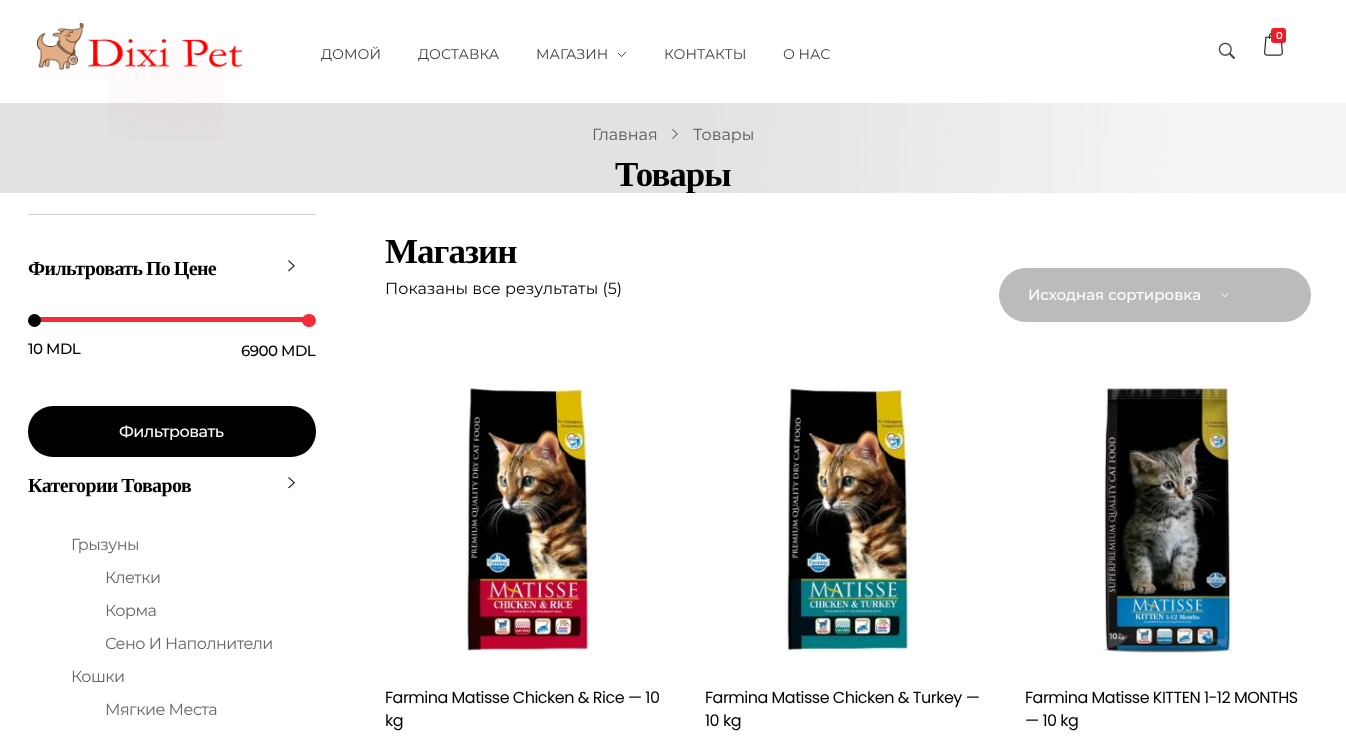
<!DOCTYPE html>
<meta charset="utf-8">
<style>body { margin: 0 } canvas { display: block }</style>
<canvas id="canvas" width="1346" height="740"></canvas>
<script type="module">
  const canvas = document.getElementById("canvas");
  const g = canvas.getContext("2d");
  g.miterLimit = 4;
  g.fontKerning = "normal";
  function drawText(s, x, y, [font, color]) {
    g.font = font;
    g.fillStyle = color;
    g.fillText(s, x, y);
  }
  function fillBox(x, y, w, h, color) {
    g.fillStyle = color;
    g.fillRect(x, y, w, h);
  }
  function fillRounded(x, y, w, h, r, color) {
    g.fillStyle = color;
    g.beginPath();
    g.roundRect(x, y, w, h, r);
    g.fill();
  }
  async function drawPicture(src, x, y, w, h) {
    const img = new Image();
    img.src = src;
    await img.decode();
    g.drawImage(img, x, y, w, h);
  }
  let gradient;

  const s1 = ["600 10px Montserrat", "#FFFFFF"];
  const s2 = ["14px Montserrat", "#3D3D3D"];
  const s3 = ["16px Montserrat", "#5A5A5A"];
  const s4 = ["bold 35px Liberation Serif", "#000000"];
  const s5 = ["bold 20px Liberation Serif", "#000000"];
  const s6 = ["500 15px Montserrat", "#000000"];
  const s7 = ["500 16px Montserrat", "#FFFFFF"];
  const s8 = ["16px Montserrat", "#666666"];
  const s9 = ["16px Montserrat", "#000000"];
  const s10 = ["500 15px Montserrat", "#FFFFFF"];
  const s11 = ["16px Poppins", "#000000"];

  fillBox(0, 0, 1346, 740, "#FFFFFF");
  gradient = g.createLinearGradient(0.1, 101, 1346, 195);
  gradient.addColorStop(0.52, "#E2E2E2");
  gradient.addColorStop(0.89, "#F5F5F5");
  g.fillStyle = gradient;
  g.fillRect(0, 103, 1346, 90);
  await drawPicture("pic2.png", 108, 41, 115, 99);
  await drawPicture("pic1.png", 37, 23, 205, 47);
  await drawPicture("pic3.png", 1264, 32, 19, 24);
  fillRounded(1271, 28, 15, 15, 3, "#EE1D26");
  drawText("0", 1276, 39, s1);
  drawText("ДОМОЙ", 321, 59, s2);
  drawText("ДОСТАВКА", 418, 59, s2);
  drawText("МАГАЗИН", 536, 59, s2);
  await drawPicture("pic4.png", 618, 52, 8, 5);
  drawText("КОНТАКТЫ", 664, 59, s2);
  drawText("О НАС", 783, 59, s2);
  await drawPicture("pic5.png", 1218, 42, 18, 18);
  drawText("Главная", 592, 140, s3);
  await drawPicture("pic6.png", 672, 129, 6, 10);
  drawText("Товары", 693, 140, s3);
  g.save();
  g.beginPath();
  g.rect(0, 103, 1346, 90);
  g.clip();
  g.letterSpacing = "-1px";
  drawText("Товары", 615, 186, s4);
  g.restore();
  fillBox(28, 214, 288, 1, "#CFCFCF");
  g.letterSpacing = "-0.6px";
  g.wordSpacing = "-1px";
  drawText("Фильтровать По Цене", 28, 275, s5);
  await drawPicture("pic7.png", 288, 260, 7, 12);
  fillBox(35, 317, 274, 5, "#F42C37");
  g.fillStyle = "#000000";
  g.beginPath();
  g.arc(34.5, 320.5, 6.5, 0, Math.PI * 2);
  g.fill();
  fillRounded(302, 314, 14, 13, 6.5, "#F42C37");
  g.letterSpacing = "-0.5px";
  g.wordSpacing = "0px";
  drawText("10 MDL", 28, 354, s6);
  drawText("6900 MDL", 241, 356, s6);
  fillRounded(28, 406, 288, 51, 25, "#000000");
  drawText("Фильтровать", 119, 437, s7);
  g.letterSpacing = "-0.6px";
  g.wordSpacing = "-1px";
  drawText("Категории Товаров", 28, 492, s5);
  await drawPicture("pic8.png", 288, 477, 7, 12);
  g.letterSpacing = "-0.5px";
  g.wordSpacing = "0px";
  drawText("Грызуны", 71, 550, s8);
  drawText("Клетки", 105, 583, s8);
  drawText("Корма", 105, 616, s8);
  drawText("Сено И Наполнители", 105, 649, s8);
  drawText("Кошки", 71, 682, s8);
  drawText("Мягкие Места", 105, 715, s8);
  g.letterSpacing = "-1px";
  drawText("Магазин", 385, 263, s4);
  g.letterSpacing = "0px";
  drawText("Показаны все результаты (5)", 385, 294, s9);
  fillRounded(999, 268, 312, 54, 27, "#BBBBBB");
  drawText("Исходная сортировка", 1028, 300, s10);
  await drawPicture("pic9.png", 1221, 293, 8, 4);
  await drawPicture("pic10.png", 465, 384, 126, 267);
  g.letterSpacing = "-0.5px";
  drawText("Farmina Matisse Chicken & Rice — 10", 385, 703, s11);
  drawText("kg", 385, 726, s11);
  await drawPicture("pic11.png", 785, 388, 126, 263);
  drawText("Farmina Matisse Chicken & Turkey —", 705, 703, s11);
  drawText("10 kg", 705, 726, s11);
  await drawPicture("pic12.png", 1103, 385, 130, 269);
  drawText("Farmina Matisse KITTEN 1-12 MONTHS", 1025, 703, s11);
  drawText("— 10 kg", 1025, 726, s11);
</script>
